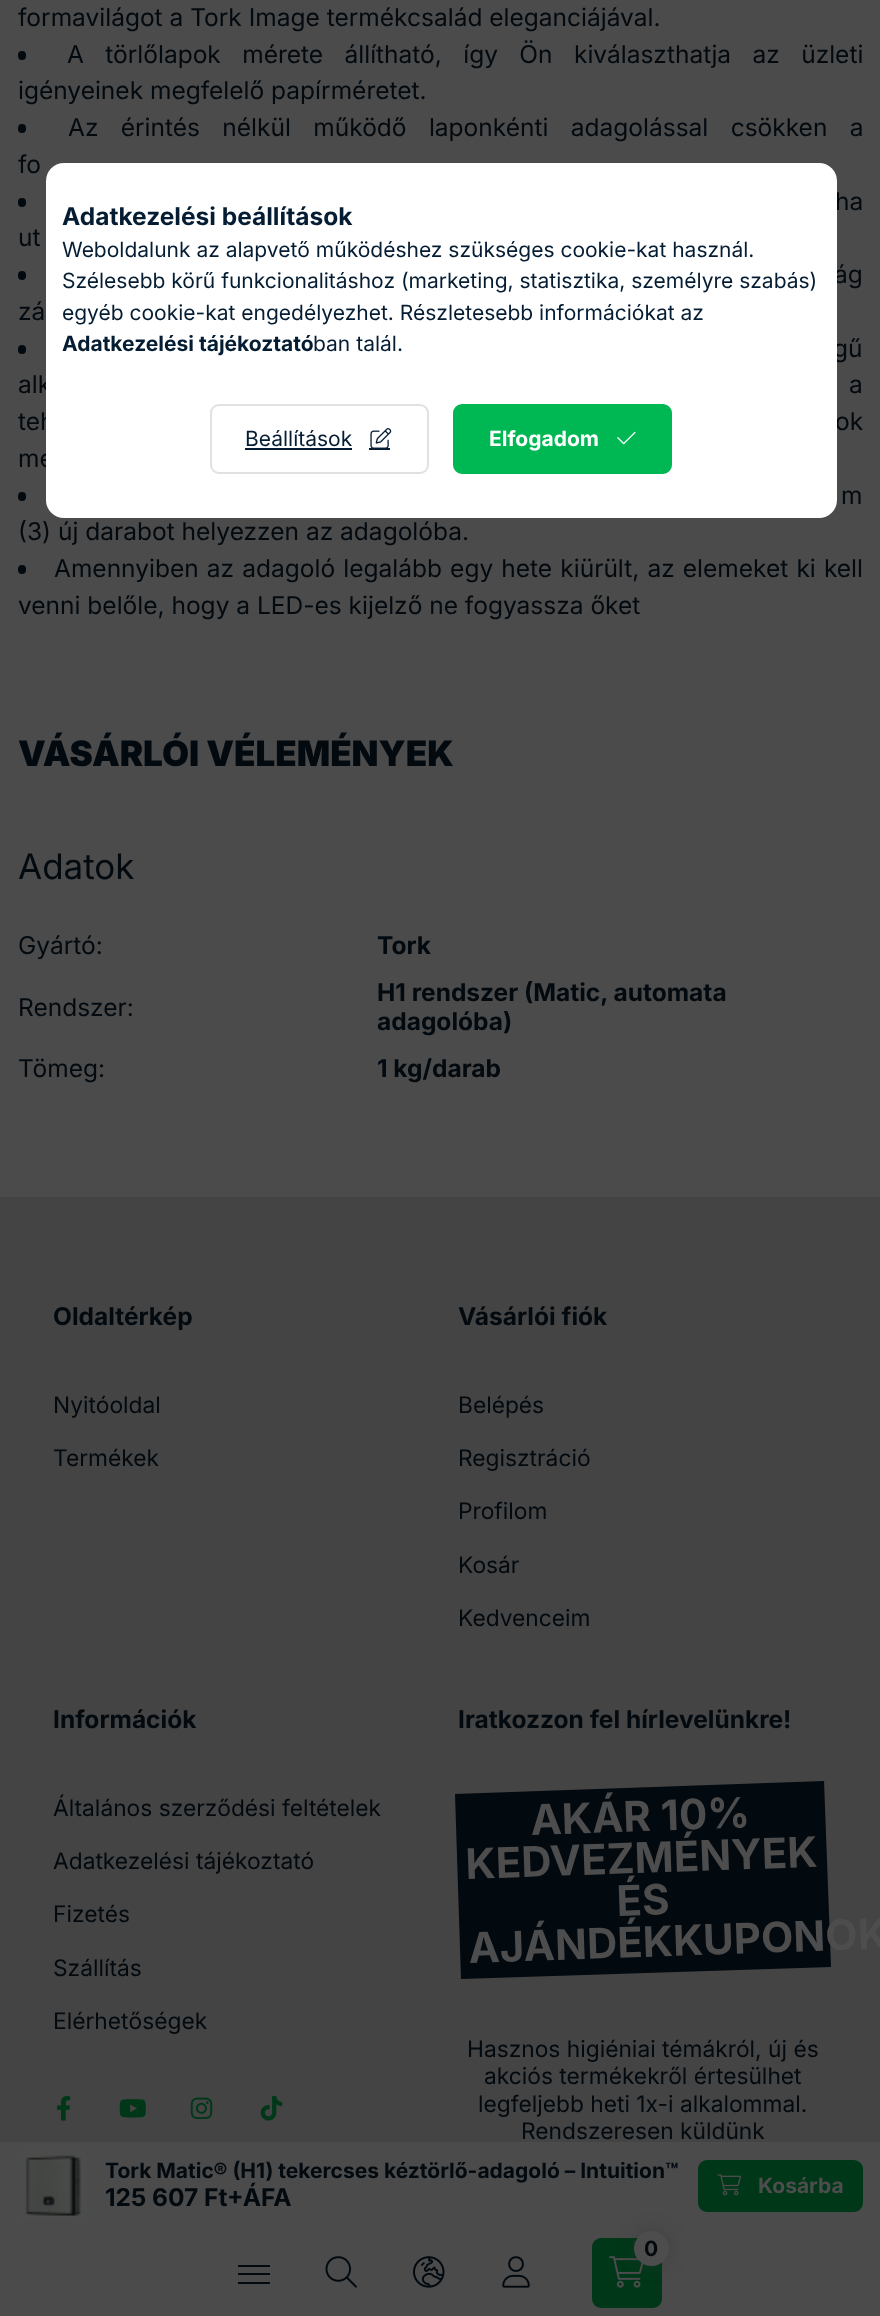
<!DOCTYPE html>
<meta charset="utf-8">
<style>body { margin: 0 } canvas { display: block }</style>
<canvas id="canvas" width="880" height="2316"></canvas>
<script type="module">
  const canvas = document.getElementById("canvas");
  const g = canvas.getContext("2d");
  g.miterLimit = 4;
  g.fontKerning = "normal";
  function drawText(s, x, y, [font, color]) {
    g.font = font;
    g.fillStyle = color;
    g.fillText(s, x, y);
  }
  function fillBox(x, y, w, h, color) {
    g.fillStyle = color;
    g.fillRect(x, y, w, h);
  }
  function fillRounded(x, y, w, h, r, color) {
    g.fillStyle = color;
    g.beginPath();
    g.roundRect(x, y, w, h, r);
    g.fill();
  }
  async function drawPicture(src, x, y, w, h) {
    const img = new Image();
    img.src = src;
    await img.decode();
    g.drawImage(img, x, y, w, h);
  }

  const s1 = ["24.5px Inter", "#02090F"];
  const s2 = ["900 35px Inter", "#02090F"];
  const s3 = ["35px Inter", "#02090F"];
  const s4 = ["bold 24.5px Inter", "#02090F"];
  const s5 = ["bold 21px Inter", "#02090F"];
  const s6 = ["bold 21px Inter", "#4D4D4D"];
  const s7 = ["22.75px Inter", "#02090F"];
  const s8 = ["bold 24.5px Inter", "#051D33"];
  const s9 = ["21px Inter", "#051D33"];
  const s10 = ["bold 21px Inter", "#051D33"];
  const s11 = ["bold 21px Inter", "#FFFFFF"];

  fillBox(0, 0, 880, 2316, "#4B4B4B");
  drawText("formavilágot a Tork Image termékcsalád eleganciájával.", 18, 26, s1);
  fillRounded(18, 51, 8, 9, 4, "#02090F");
  g.wordSpacing = "14.5px";
  drawText("A törlőlapok mérete állítható, így Ön kiválaszthatja az üzleti", 67, 63, s1);
  g.wordSpacing = "0px";
  drawText("igényeinek megfelelő papírméretet.", 18, 99, s1);
  fillRounded(18, 124, 8, 9, 4, "#02090F");
  g.wordSpacing = "15.5px";
  drawText("Az érintés nélkül működő laponkénti adagolással csökken a", 68, 136, s1);
  g.wordSpacing = "0px";
  drawText("fo", 18, 173, s1);
  fillRounded(18, 198, 8, 9, 4, "#02090F");
  g.wordSpacing = "14px";
  drawText("ha", 835, 210, s1);
  g.wordSpacing = "0px";
  drawText("ut", 18, 246, s1);
  fillRounded(18, 271, 8, 9, 4, "#02090F");
  g.wordSpacing = "1px";
  drawText("ág", 834, 283, s1);
  g.wordSpacing = "0px";
  drawText("zá", 18, 320, s1);
  fillRounded(18, 345, 8, 9, 4, "#02090F");
  g.wordSpacing = "4px";
  drawText("gű", 833, 357, s1);
  g.wordSpacing = "16px";
  drawText("alk", 18, 393, s1);
  drawText("a", 849, 393, s1);
  g.wordSpacing = "14px";
  drawText("teh", 18, 430, s1);
  drawText("ok", 835, 430, s1);
  g.wordSpacing = "0px";
  drawText("me", 18, 467, s1);
  fillRounded(18, 492, 8, 9, 4, "#02090F");
  g.wordSpacing = "3px";
  drawText("m", 841, 504, s1);
  g.wordSpacing = "0px";
  drawText("(3) új darabot helyezzen az adagolóba.", 18, 540, s1);
  fillRounded(18, 565, 8, 9, 4, "#02090F");
  g.wordSpacing = "1.25px";
  drawText("Amennyiben az adagoló legalább egy hete kiürült, az elemeket ki kell", 54, 577, s1);
  g.wordSpacing = "0px";
  drawText("venni belőle, hogy a LED-es kijelző ne fogyassza őket", 18, 614, s1);
  drawText("VÁSÁRLÓI VÉLEMÉNYEK", 18, 766, s2);
  drawText("Adatok", 18, 879, s3);
  drawText("Gyártó:", 18, 954, s1);
  drawText("Tork", 377, 954, s4);
  drawText("Rendszer:", 18, 1016, s1);
  drawText("H1 rendszer (Matic, automata", 377, 1001, s4);
  drawText("adagolóba)", 377, 1030, s4);
  drawText("Tömeg:", 18, 1077, s1);
  drawText("1 kg/darab", 377, 1077, s4);
  await drawPicture("pic1.png", 17, 2151, 70, 70);
  drawText("Tork Matic® (H1) tekercses kéztörlő-adagoló – Intuition™", 105, 2178, s5);
  drawText("125 607 Ft", 105, 2206, s4);
  drawText("+ÁFA", 227, 2206, s4);
  fillRounded(698, 2160, 165, 52, 9, "#003719");
  await drawPicture("pic2.png", 717, 2174, 24, 22);
  drawText("Kosárba", 758, 2193, s6);
  fillBox(0, 1197, 880, 945, "#444444");
  drawText("Oldaltérkép", 53, 1325, s4);
  drawText("Nyitóoldal", 53, 1413, s7);
  drawText("Termékek", 53, 1466, s7);
  drawText("Vásárlói fiók", 458, 1325, s4);
  drawText("Belépés", 458, 1413, s7);
  drawText("Regisztráció", 458, 1466, s7);
  drawText("Profilom", 458, 1519, s7);
  drawText("Kosár", 458, 1573, s7);
  drawText("Kedvenceim", 458, 1626, s7);
  drawText("Információk", 53, 1728, s4);
  drawText("Általános szerződési feltételek", 53, 1816, s7);
  drawText("Adatkezelési tájékoztató", 53, 1869, s7);
  drawText("Fizetés", 53, 1922, s7);
  drawText("Szállítás", 53, 1976, s7);
  drawText("Elérhetőségek", 53, 2029, s7);
  await drawPicture("pic3.png", 57, 2096, 14, 25);
  await drawPicture("pic4.png", 119, 2099, 27, 19);
  await drawPicture("pic5.png", 190, 2097, 23, 22);
  await drawPicture("pic6.png", 260, 2096, 23, 25);
  drawText("Iratkozzon fel hírlevelünkre!", 458, 1728, s4);
  g.beginPath();
  g.moveTo(455, 1794);
  g.lineTo(824, 1781);
  g.lineTo(831, 1967);
  g.lineTo(461, 1979);
  g.closePath();
  g.fill();
  g.font = "bold 42px Inter";
  g.fillStyle = "#4D4D4D";
  g.save();
  g.translate(531, 1835);
  g.rotate(-2 * Math.PI / 180);
  g.fillText("AKÁR 10%", 0, 0);
  g.restore();
  g.save();
  g.translate(466, 1879);
  g.rotate(-2 * Math.PI / 180);
  g.fillText("KEDVEZMÉNYEK", 0, 0);
  g.restore();
  g.save();
  g.translate(617, 1916);
  g.rotate(-2 * Math.PI / 180);
  g.fillText("ÉS", 0, 0);
  g.restore();
  g.save();
  g.translate(469, 1963);
  g.rotate(-2 * Math.PI / 180);
  g.fillText("AJÁNDÉKKUPONOK", 0, 0);
  g.restore();
  drawText("Hasznos higiéniai témákról, új és", 467, 2057, s7);
  drawText("akciós termékekről értesülhet", 484, 2084, s7);
  drawText("legfeljebb heti 1x-i alkalommal.", 478, 2112, s7);
  drawText("Rendszeresen küldünk", 521, 2139, s7);
  fillRounded(592, 2238, 70, 70, 9, "#003719");
  await drawPicture("pic7.png", 609, 2256, 35, 32);
  g.fillStyle = "rgba(45, 45, 45, 0.35)";
  g.filter = "blur(9px)";
  g.beginPath();
  g.roundRect(634, 2231, 35, 35, 17.5);
  g.fill();
  g.filter = "none";
  g.fillStyle = "#4D4D4D";
  g.beginPath();
  g.arc(651.5, 2248.5, 17.5, 0, Math.PI * 2);
  g.fill();
  drawText("0", 644, 2256, s5);
  fillBox(238, 2265, 32, 2, "#02090F");
  fillBox(238, 2273, 32, 2, "#02090F");
  fillBox(238, 2282, 32, 2, "#02090F");
  await drawPicture("pic8.png", 325, 2256, 32, 32);
  await drawPicture("pic9.png", 413, 2256, 32, 32);
  await drawPicture("pic10.png", 502, 2256, 28, 32);
  fillRounded(46, 163, 791, 355, 18, "#FFFFFF");
  drawText("Adatkezelési beállítások", 62, 225, s8);
  drawText("Weboldalunk az alapvető működéshez szükséges cookie-kat használ.", 62, 257, s9);
  drawText("Szélesebb körű funkcionalitáshoz (marketing, statisztika, személyre szabás)", 62, 288, s9);
  drawText("egyéb cookie-kat engedélyezhet. Részletesebb információkat az", 62, 320, s9);
  drawText("Adatkezelési tájékoztató", 62, 351, s10);
  drawText("ban talál.", 313, 351, s9);
  g.beginPath();
  g.roundRect(211, 405, 217, 68, 8);
  g.strokeStyle = "#E1E1E1";
  g.lineWidth = 2;
  g.stroke();
  drawText("Beállítások", 245, 446, s9);
  fillBox(245, 448, 107, 2, "#051D33");
  await drawPicture("pic11.png", 370, 428, 22, 20);
  fillBox(369, 448, 21, 2, "#051D33");
  g.fillStyle = "#00B853";
  g.beginPath();
  g.roundRect(454, 405, 217, 68, 8);
  g.fill();
  g.strokeStyle = "#00B853";
  g.stroke();
  drawText("Elfogadom", 489, 446, s11);
  await drawPicture("pic12.png", 617, 431, 19, 14);
</script>
